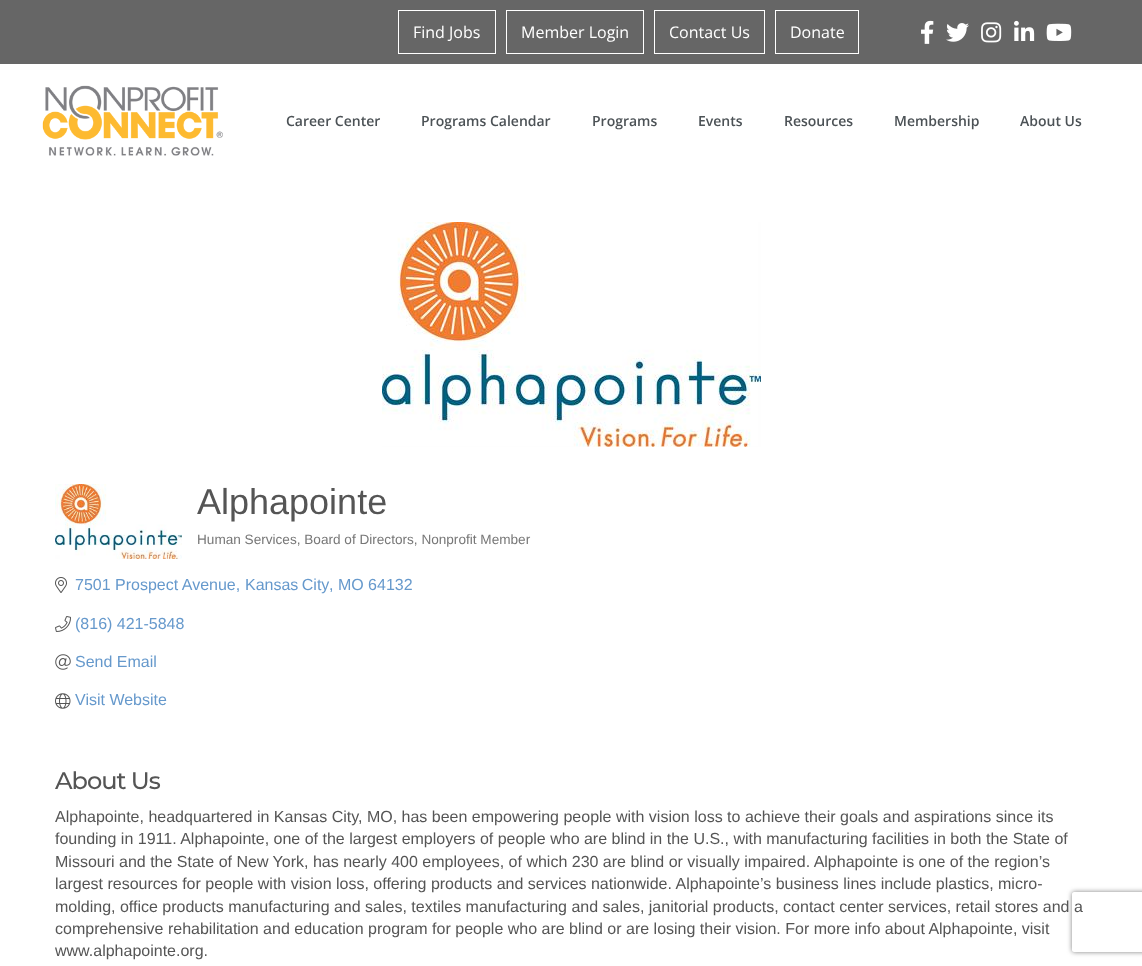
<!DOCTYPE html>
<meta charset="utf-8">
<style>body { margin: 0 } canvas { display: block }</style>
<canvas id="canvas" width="1142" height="966"></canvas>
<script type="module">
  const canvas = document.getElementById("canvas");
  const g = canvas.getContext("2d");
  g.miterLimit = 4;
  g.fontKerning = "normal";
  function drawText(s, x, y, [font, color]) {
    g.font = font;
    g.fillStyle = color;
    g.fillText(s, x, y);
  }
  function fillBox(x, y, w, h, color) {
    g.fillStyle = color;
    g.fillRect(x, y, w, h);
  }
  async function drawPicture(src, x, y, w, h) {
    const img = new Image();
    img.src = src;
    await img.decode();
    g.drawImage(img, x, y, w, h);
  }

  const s1 = ["16px Open Sans", "#FFFFFF"];
  const s2 = ["600 14px Open Sans", "#4C5256"];
  const s3 = ["36px Liberation Sans", "#555555"];
  const s4 = ["13.6px Liberation Sans", "#777777"];
  const s5 = ["16px Liberation Sans", "#6699CC"];
  const s6 = ["100 24px Montserrat", "#555555"];
  const s7 = ["16px Liberation Sans", "#555555"];

  fillBox(0, 0, 1142, 966, "#FFFFFF");
  fillBox(0, 0, 1142, 64, "#666666");
  g.strokeStyle = "#FFFFFF";
  g.strokeRect(398.5, 10.5, 97, 43);
  drawText("Find Jobs", 413, 38, s1);
  g.strokeRect(506.5, 10.5, 137, 43);
  drawText("Member Login", 521, 38, s1);
  g.strokeRect(654.5, 10.5, 110, 43);
  drawText("Contact Us", 669, 38, s1);
  g.strokeRect(775.5, 10.5, 83, 43);
  drawText("Donate", 790, 38, s1);
  await drawPicture("pic1.png", 921, 20, 13, 24);
  await drawPicture("pic2.png", 946, 23, 23, 19);
  await drawPicture("pic3.png", 981, 22, 21, 21);
  await drawPicture("pic4.png", 1014, 20, 21, 21);
  await drawPicture("pic5.png", 1046, 23, 26, 18);
  await drawPicture("pic6.png", 42, 85, 181, 71);
  drawText("Career Center", 286, 126, s2);
  drawText("Programs Calendar", 421, 126, s2);
  drawText("Programs", 592, 126, s2);
  drawText("Events", 698, 126, s2);
  drawText("Resources", 784, 126, s2);
  drawText("Membership", 894, 126, s2);
  drawText("About Us", 1020, 126, s2);
  await drawPicture("pic7.png", 382, 222, 379, 225);
  await drawPicture("pic8.png", 55, 484, 127, 75);
  drawText("Alphapointe", 197, 514, s3);
  drawText("Human Services, Board of Directors, Nonprofit Member", 197, 544, s4);
  await drawPicture("pic9.png", 55, 577, 12, 16);
  drawText("7501 Prospect Avenue,", 75, 590, s5);
  g.wordSpacing = "-1px";
  drawText("Kansas City", 245, 590, s5);
  g.wordSpacing = "0px";
  drawText(", MO 64132", 329, 590, s5);
  await drawPicture("pic10.png", 55, 616, 16, 16);
  drawText("(816) 421-5848", 75, 629, s5);
  await drawPicture("pic11.png", 55, 654, 16, 16);
  drawText("Send Email", 75, 667, s5);
  await drawPicture("pic12.png", 55, 693, 16, 16);
  drawText("Visit Website", 75, 705, s5);
  g.letterSpacing = "-1px";
  drawText("About Us", 55, 789, s6);
  g.letterSpacing = "0px";
  drawText("Alphapointe, headquartered in Kansas City, MO, has been empowering people with vision loss to achieve their goals and aspirations since its", 55, 822, s7);
  drawText("founding in 1911. Alphapointe, one of the largest employers of people who are blind in the U.S., with manufacturing facilities in both the State of", 55, 844, s7);
  drawText("Missouri and the State of New York, has nearly 400 employees, of which 230 are blind or visually impaired. Alphapointe is one of the region’s", 55, 867, s7);
  drawText("largest resources for people with vision loss, offering products and services nationwide. Alphapointe’s business lines include plastics, micro-", 55, 889, s7);
  drawText("molding, office products manufacturing and sales, textiles manufacturing and sales, janitorial products, contact center services, retail stores and a", 55, 912, s7);
  drawText("comprehensive rehabilitation and education program for people who are blind or are losing their vision. For more info about Alphapointe, visit", 55, 934, s7);
  drawText("www.alphapointe.org.", 55, 956, s7);
  g.save();
  g.beginPath();
  g.moveTo(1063, 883);
  g.lineTo(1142, 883);
  g.lineTo(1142, 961);
  g.lineTo(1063, 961);
  g.closePath();
  g.moveTo(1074, 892);
  g.lineTo(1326, 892);
  g.bezierCurveTo(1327, 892, 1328, 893, 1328, 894);
  g.lineTo(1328, 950);
  g.bezierCurveTo(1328, 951, 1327, 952, 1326, 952);
  g.lineTo(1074, 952);
  g.bezierCurveTo(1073, 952, 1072, 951, 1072, 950);
  g.lineTo(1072, 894);
  g.bezierCurveTo(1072, 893, 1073, 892, 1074, 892);
  g.closePath();
  g.clip("evenodd");
  g.fillStyle = "#808080";
  g.filter = "blur(2.5px)";
  g.beginPath();
  g.roundRect(1072, 892, 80, 60, 2);
  g.fill();
  g.filter = "none";
  g.restore();
</script>
